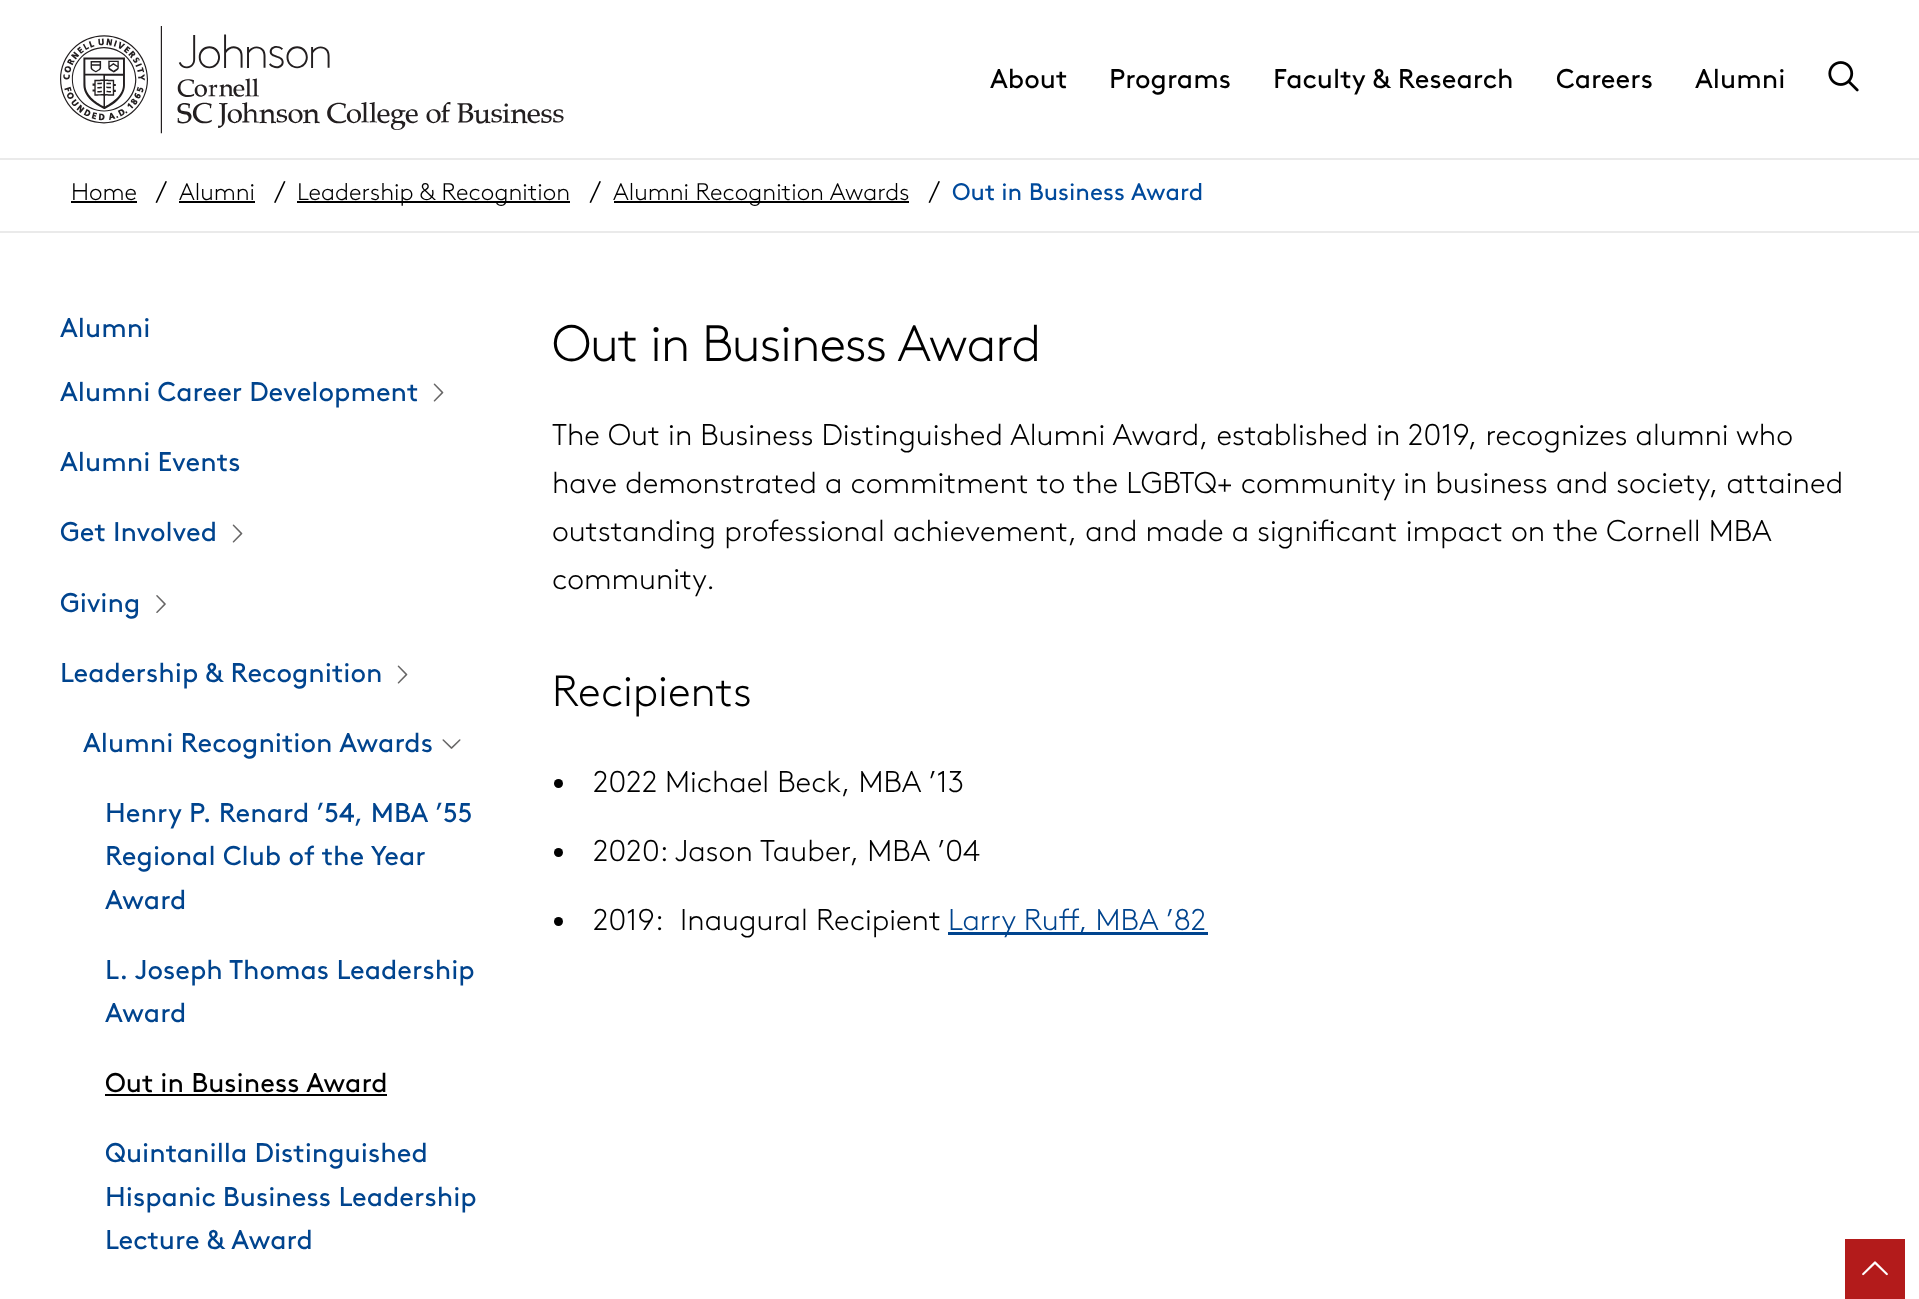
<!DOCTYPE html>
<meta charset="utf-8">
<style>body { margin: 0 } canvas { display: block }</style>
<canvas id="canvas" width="1919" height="1299"></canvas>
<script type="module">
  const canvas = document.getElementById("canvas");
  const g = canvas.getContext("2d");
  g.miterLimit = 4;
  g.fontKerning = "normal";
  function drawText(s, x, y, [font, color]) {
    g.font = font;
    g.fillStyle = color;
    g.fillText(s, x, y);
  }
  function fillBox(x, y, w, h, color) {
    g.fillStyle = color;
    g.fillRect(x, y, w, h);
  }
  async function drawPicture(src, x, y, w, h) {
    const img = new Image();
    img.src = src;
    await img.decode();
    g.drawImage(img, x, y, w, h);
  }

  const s1 = ["27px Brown", "#000000"];
  const s2 = ["300 24px Brown", "#000000"];
  const s3 = ["24px Brown", "#004A9C"];
  const s4 = ["27px Brown", "#00448E"];
  const s5 = ["300 51px Brown", "#000000"];
  const s6 = ["300 30px Brown", "#000000"];
  const s7 = ["300 43.5px Brown", "#000000"];
  const s8 = ["300 30px Brown", "#00448E"];

  fillBox(0, 0, 1919, 1299, "#FFFFFF");
  fillBox(0, 158, 1919, 2, "#EAEAEA");
  await drawPicture("pic1.png", 60, 26, 504, 108);
  drawText("About", 990, 88, s1);
  drawText("Programs", 1109, 88, s1);
  drawText("Faculty & Research", 1273, 88, s1);
  drawText("Careers", 1556, 88, s1);
  drawText("Alumni", 1695, 88, s1);
  await drawPicture("pic2.png", 1828, 61, 31, 31);
  fillBox(0, 231, 1919, 2, "#EAEAEA");
  drawText("Home", 71, 200, s2);
  fillBox(71, 201, 66, 2, "#000000");
  g.beginPath();
  g.moveTo(165.5, 181);
  g.lineTo(167, 181.5);
  g.lineTo(157, 203);
  g.lineTo(155.5, 202.5);
  g.closePath();
  g.fill();
  drawText("Alumni", 179, 200, s2);
  fillBox(179, 201, 76, 2, "#000000");
  g.beginPath();
  g.moveTo(284, 181);
  g.lineTo(285.5, 181.5);
  g.lineTo(275.5, 203);
  g.lineTo(274, 202.5);
  g.closePath();
  g.fill();
  fillBox(297, 201, 273, 2, "#000000");
  drawText("Leadership & Recognition", 297, 200, s2);
  g.beginPath();
  g.moveTo(599.5, 181);
  g.lineTo(601, 181.5);
  g.lineTo(591, 203);
  g.lineTo(589.5, 202.5);
  g.closePath();
  g.fill();
  fillBox(614, 201, 295, 2, "#000000");
  drawText("Alumni Recognition Awards", 613, 200, s2);
  g.beginPath();
  g.moveTo(938.5, 181);
  g.lineTo(940, 181.5);
  g.lineTo(930, 203);
  g.lineTo(928.5, 202.5);
  g.closePath();
  g.fill();
  drawText("Out in Business Award", 952, 200, s3);
  drawText("Alumni", 60, 337, s4);
  drawText("Alumni Career Development", 60, 401, s4);
  await drawPicture("pic3.png", 433, 383, 11, 19);
  drawText("Alumni Events", 60, 471, s4);
  drawText("Get Involved", 60, 541, s4);
  await drawPicture("pic3.png", 232, 524, 11, 19);
  drawText("Giving", 60, 612, s4);
  await drawPicture("pic4.png", 156, 595, 10, 18);
  drawText("Leadership & Recognition", 60, 682, s4);
  await drawPicture("pic3.png", 397, 665, 11, 19);
  drawText("Alumni Recognition Awards", 83, 752, s4);
  await drawPicture("pic5.png", 442, 739, 19, 10);
  drawText("Henry P. Renard ’54, MBA ’55", 105, 822, s4);
  drawText("Regional Club of the Year", 105, 865, s4);
  drawText("Award", 105, 909, s4);
  drawText("L. Joseph Thomas Leadership", 105, 979, s4);
  drawText("Award", 105, 1022, s4);
  drawText("Out in Business Award", 105, 1092, s1);
  fillBox(105, 1094, 282, 2, "#000000");
  drawText("Quintanilla Distinguished", 105, 1162, s4);
  drawText("Hispanic Business Leadership", 105, 1206, s4);
  drawText("Lecture & Award", 105, 1249, s4);
  g.letterSpacing = "-1px";
  drawText("Out in Business Award", 552, 361, s5);
  g.letterSpacing = "0px";
  drawText("The Out in Business Distinguished Alumni Award, established in 2019, recognizes alumni who", 552, 445, s6);
  drawText("have demonstrated a commitment to the LGBTQ+ community in business and society, attained", 552, 493, s6);
  drawText("outstanding professional achievement, and made a significant impact on the Cornell MBA", 552, 541, s6);
  drawText("community.", 552, 589, s6);
  drawText("Recipients", 552, 706, s7);
  g.beginPath();
  g.arc(558.5, 783.5, 4.5, 0, Math.PI * 2);
  g.fill();
  drawText("2022 Michael Beck, MBA ’13", 593, 792, s6);
  g.beginPath();
  g.arc(558.5, 852.5, 4.5, 0, Math.PI * 2);
  g.fill();
  drawText("2020: Jason Tauber, MBA ’04", 593, 861, s6);
  g.beginPath();
  g.arc(558.5, 921.5, 4.5, 0, Math.PI * 2);
  g.fill();
  drawText("2019:  Inaugural Recipient", 593, 930, s6);
  fillBox(948, 932, 260, 3, "#00448E");
  drawText("Larry Ruff, MBA ’82", 948, 930, s8);
  fillBox(1845, 1239, 60, 60, "#B31B1B");
  await drawPicture("pic6.png", 1862, 1261, 26, 15);
</script>
